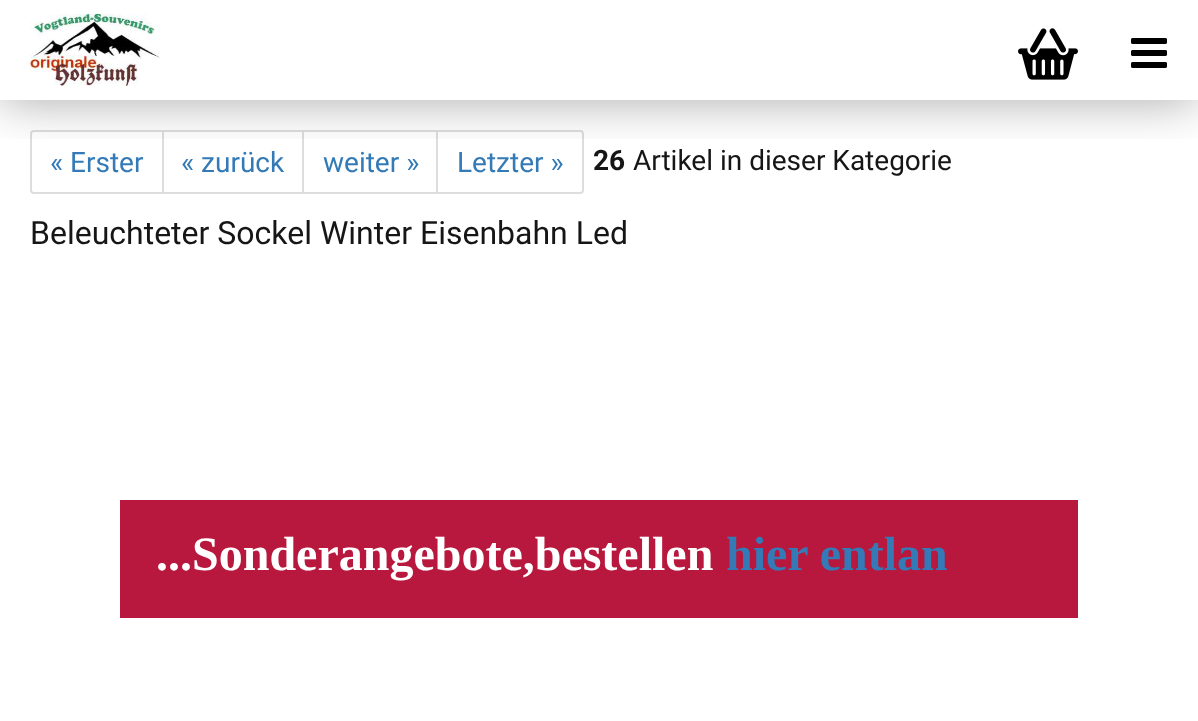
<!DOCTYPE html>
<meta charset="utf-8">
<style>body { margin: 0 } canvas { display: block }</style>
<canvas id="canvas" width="1198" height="721"></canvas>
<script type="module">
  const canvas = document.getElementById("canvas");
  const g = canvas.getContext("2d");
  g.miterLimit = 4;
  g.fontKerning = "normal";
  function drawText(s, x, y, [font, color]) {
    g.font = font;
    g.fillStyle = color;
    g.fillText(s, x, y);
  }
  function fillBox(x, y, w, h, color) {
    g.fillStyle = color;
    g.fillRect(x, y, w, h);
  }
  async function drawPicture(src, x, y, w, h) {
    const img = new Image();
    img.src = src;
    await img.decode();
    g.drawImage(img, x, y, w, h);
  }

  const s1 = ["28px Roboto", "#337AB7"];
  const s2 = ["bold 28px Roboto", "#161616"];
  const s3 = ["28px Roboto", "#161616"];
  const s4 = ["32px Roboto", "#161616"];
  const s5 = ["bold 48px Liberation Serif", "#FFFFFF"];
  const s6 = ["bold 48px Liberation Serif", "#337AB7"];

  fillBox(0, 0, 1198, 721, "#FFFFFF");
  g.beginPath();
  g.roundRect(31, 131, 132, 62, [3, 0, 0, 3]);
  g.strokeStyle = "#DDDDDD";
  g.lineWidth = 2;
  g.stroke();
  drawText("« Erster", 50, 172, s1);
  g.strokeRect(163, 131, 140, 62);
  drawText("« zurück", 181, 172, s1);
  g.strokeRect(303, 131, 134, 62);
  drawText("weiter »", 323, 172, s1);
  g.fillStyle = "#FFFFFF";
  g.beginPath();
  g.roundRect(437, 131, 146, 62, [0, 3, 3, 0]);
  g.fill();
  g.stroke();
  drawText("Letzter »", 457, 172, s1);
  drawText("26", 593, 170, s2);
  drawText("Artikel in dieser Kategorie", 633, 170, s3);
  drawText("Beleuchteter Sockel Winter Eisenbahn Led", 30, 244, s4);
  g.save();
  g.beginPath();
  g.rect(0, 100, 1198, 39);
  g.clip();
  g.fillStyle = "rgba(0, 0, 0, 0.35)";
  g.filter = "blur(25px)";
  g.beginPath();
  g.rect(0, 0, 1198, 100);
  g.fill();
  g.filter = "none";
  g.restore();
  await drawPicture("pic1.png", 30, 13, 130, 73);
  await drawPicture("pic2.png", 1018, 28, 60, 52);
  await drawPicture("pic3.png", 1131, 38, 36, 30);
  fillBox(120, 500, 958, 118, "#B8183D");
  drawText("...Sonderangebote,bestellen", 156, 570, s5);
  drawText("hier entlan", 726, 570, s6);
</script>
